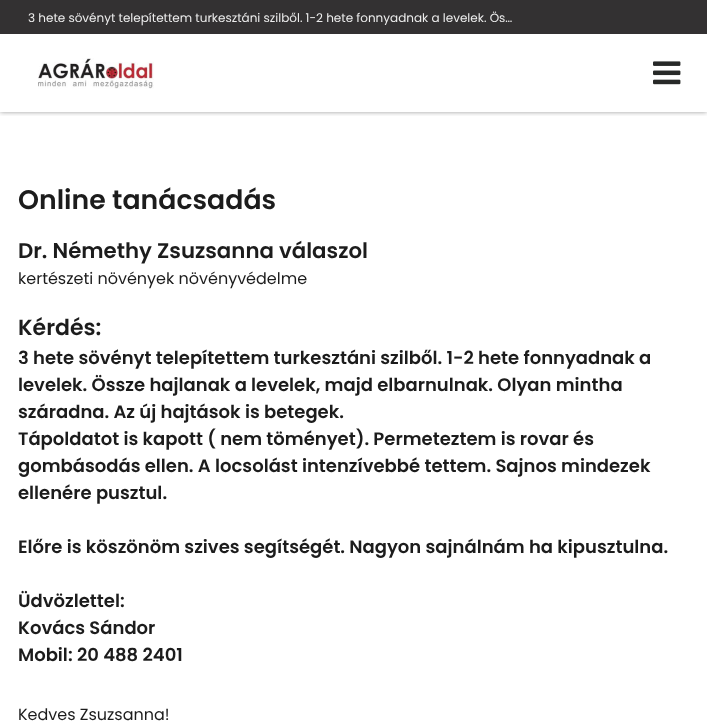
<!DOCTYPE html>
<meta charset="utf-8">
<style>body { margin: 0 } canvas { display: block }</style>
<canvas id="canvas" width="707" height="721"></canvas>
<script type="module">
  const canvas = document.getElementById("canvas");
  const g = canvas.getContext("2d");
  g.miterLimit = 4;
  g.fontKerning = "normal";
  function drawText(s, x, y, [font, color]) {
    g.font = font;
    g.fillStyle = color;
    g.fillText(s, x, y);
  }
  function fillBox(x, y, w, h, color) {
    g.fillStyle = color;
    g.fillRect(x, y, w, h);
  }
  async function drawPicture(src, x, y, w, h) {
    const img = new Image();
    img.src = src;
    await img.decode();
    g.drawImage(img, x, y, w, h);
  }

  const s1 = ["12px Poppins", "#EDEDED"];
  const s2 = ["600 26.75px Poppins", "#1C1C1C"];
  const s3 = ["600 21.3px Poppins", "#1C1C1C"];
  const s4 = ["16px Poppins", "#1C1C1C"];
  const s5 = ["600 22px Poppins", "#1C1C1C"];
  const s6 = ["600 18px Poppins", "#1C1C1C"];

  fillBox(0, 0, 707, 721, "#FFFFFF");
  g.save();
  g.beginPath();
  g.rect(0, 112, 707, 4);
  g.clip();
  g.fillStyle = "rgba(0, 0, 0, 0.4)";
  g.filter = "blur(2.5px)";
  g.beginPath();
  g.rect(0, 0, 707, 112);
  g.fill();
  g.filter = "none";
  g.restore();
  fillBox(0, 0, 707, 34, "#333132");
  drawText("3 hete sövényt telepítettem turkesztáni szilből. 1-2 hete fonnyadnak a levelek. Ös…", 28, 22, s1);
  await drawPicture("pic1.png", 38, 58, 116, 31);
  await drawPicture("pic2.png", 653, 61, 28, 24);
  drawText("Online tanácsadás", 18, 209, s2);
  drawText("Dr. Némethy Zsuzsanna válaszol", 18, 258, s3);
  drawText("kertészeti növények növényvédelme", 18, 284, s4);
  drawText("Kérdés:", 18, 335, s5);
  drawText("3 hete sövényt telepítettem turkesztáni szilből. 1-2 hete fonnyadnak a", 18, 364, s6);
  drawText("levelek. Össze hajlanak a levelek, majd elbarnulnak. Olyan mintha", 18, 391, s6);
  drawText("száradna. Az új hajtások is betegek.", 18, 418, s6);
  drawText("Tápoldatot is kapott ( nem töményet). Permeteztem is rovar és", 18, 445, s6);
  drawText("gombásodás ellen. A locsolást intenzívebbé tettem. Sajnos mindezek", 18, 472, s6);
  drawText("ellenére pusztul.", 18, 499, s6);
  drawText("Előre is köszönöm szives segítségét. Nagyon sajnálnám ha kipusztulna.", 18, 553, s6);
  drawText("Üdvözlettel:", 18, 607, s6);
  drawText("Kovács Sándor", 18, 634, s6);
  drawText("Mobil: 20 488 2401", 18, 661, s6);
  drawText("Kedves Zsuzsanna!", 18, 720, s4);
</script>
